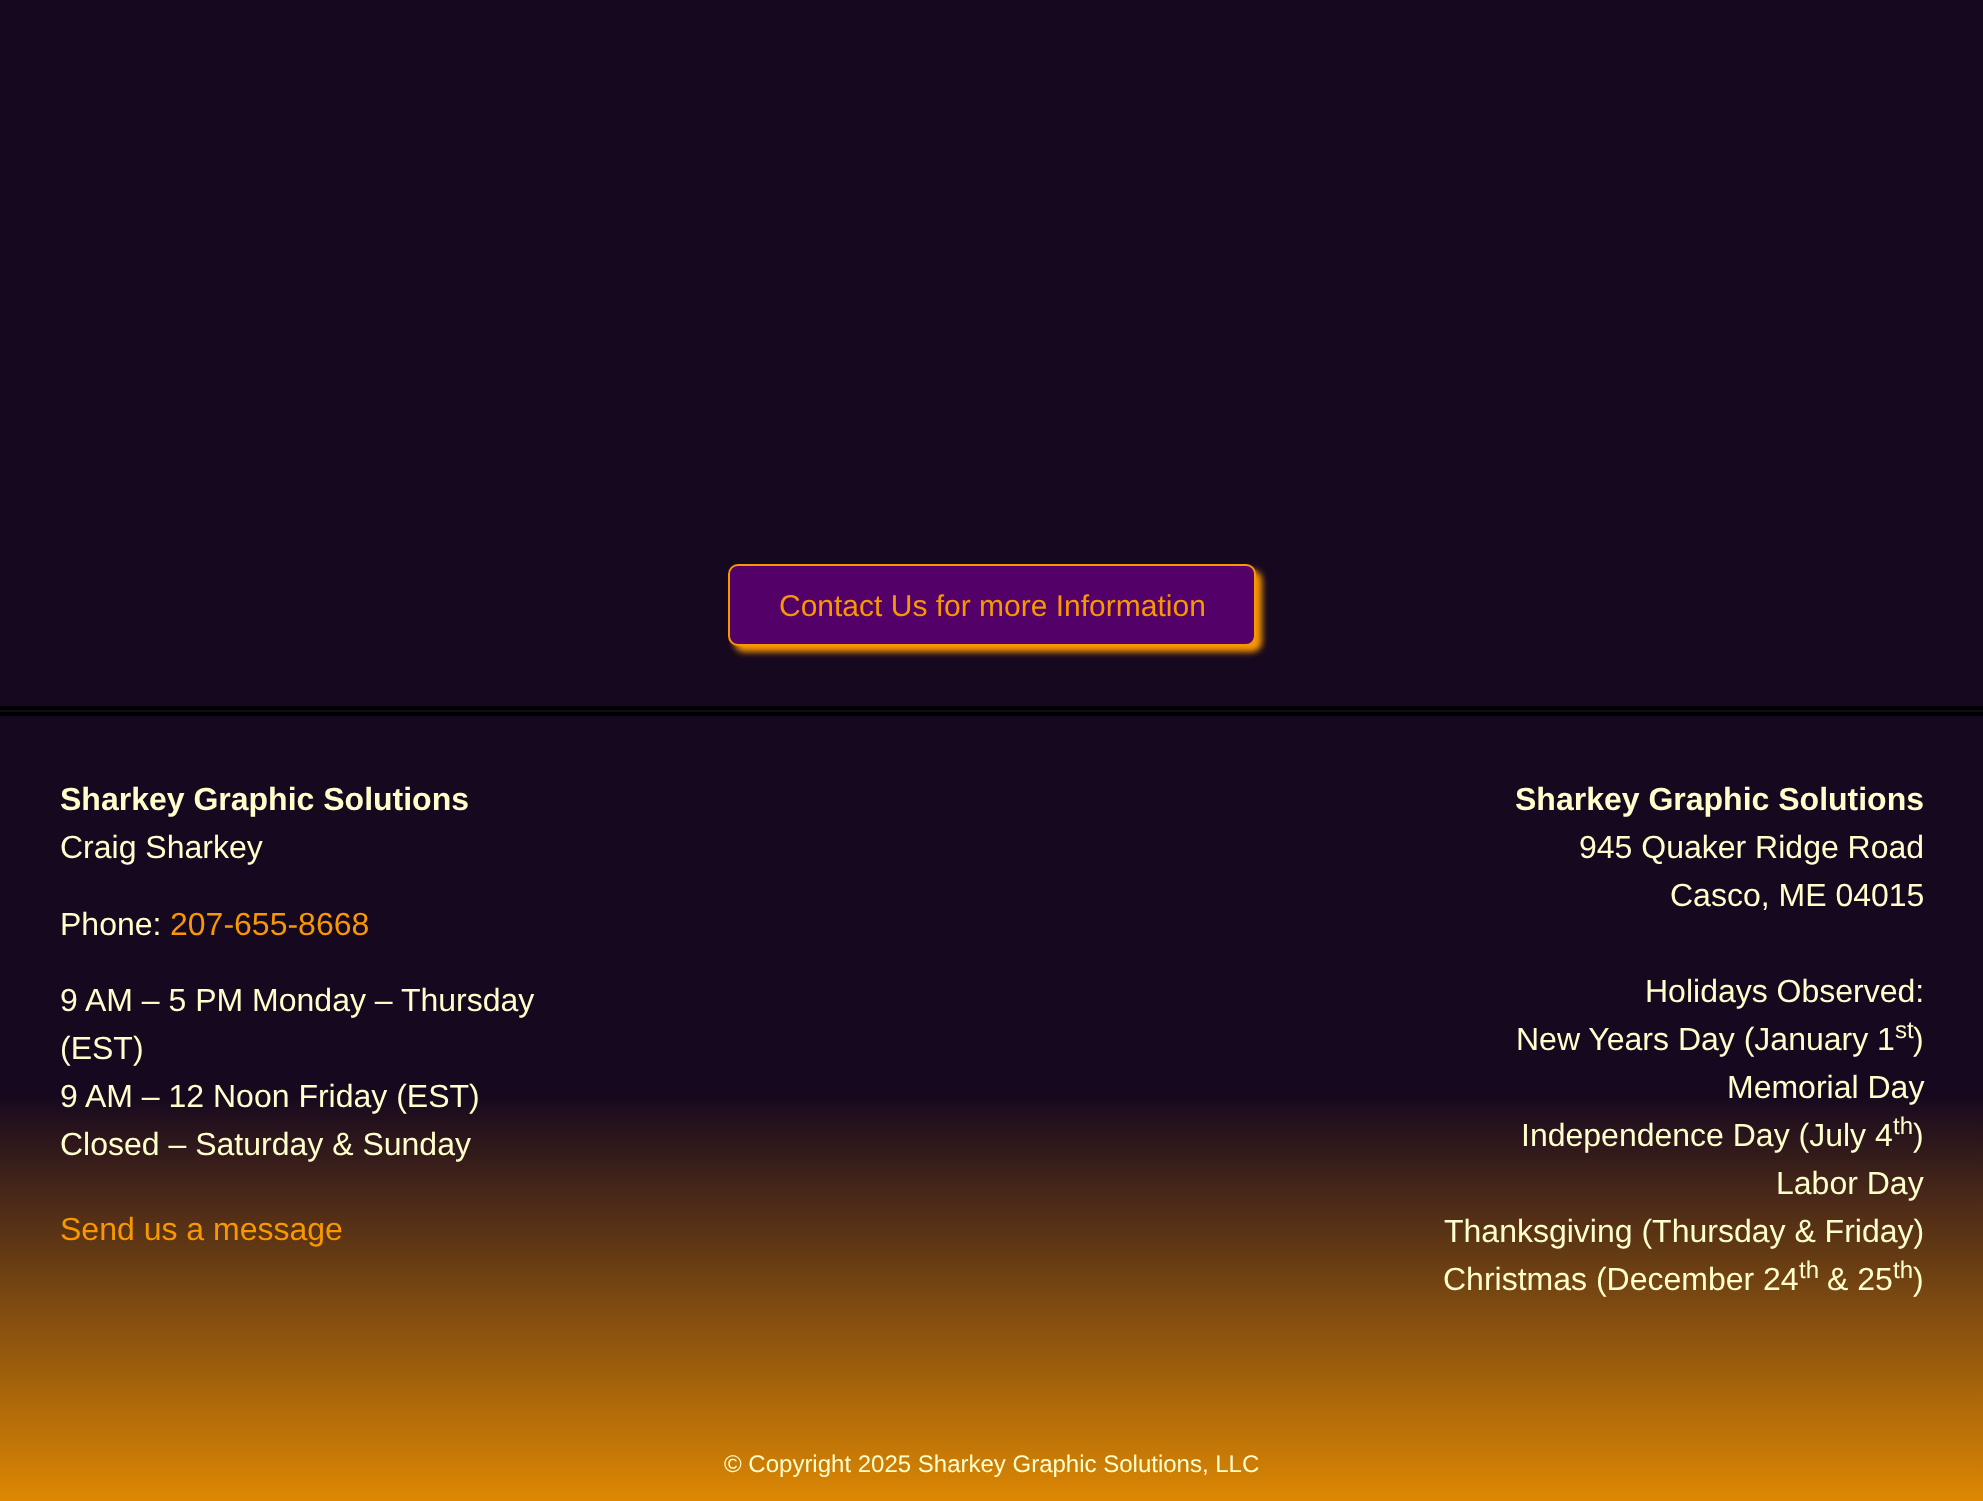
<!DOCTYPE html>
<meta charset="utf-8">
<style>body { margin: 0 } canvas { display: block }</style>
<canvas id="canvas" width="1983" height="1501"></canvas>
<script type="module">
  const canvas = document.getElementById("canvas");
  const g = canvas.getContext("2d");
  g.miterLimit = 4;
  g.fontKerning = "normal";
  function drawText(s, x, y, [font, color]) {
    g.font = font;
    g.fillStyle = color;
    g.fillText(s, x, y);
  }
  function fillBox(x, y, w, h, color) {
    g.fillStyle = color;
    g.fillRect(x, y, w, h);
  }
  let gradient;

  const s1 = ["30px Liberation Sans", "#F89700"];
  const s2 = ["bold 32px Liberation Sans", "#FFFFCC"];
  const s3 = ["32px Liberation Sans", "#FFFFCC"];
  const s4 = ["32px Liberation Sans", "#F89700"];
  const s5 = ["24px Liberation Sans", "#FFFFCC"];

  fillBox(0, 0, 1983, 1501, "#16081F");
  g.fillStyle = "#F89700";
  g.filter = "blur(3px)";
  g.beginPath();
  g.roundRect(734, 570, 528, 82, 10);
  g.fill();
  g.filter = "none";
  g.fillStyle = "#530068";
  g.beginPath();
  g.roundRect(729, 565, 526, 80, 9);
  g.fill();
  g.strokeStyle = "#F89700";
  g.lineWidth = 2;
  g.stroke();
  drawText("Contact Us for more Information", 779, 616, s1);
  gradient = g.createLinearGradient(992, 686, 992, 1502);
  gradient.addColorStop(0.5, "#16081F");
  gradient.addColorStop(1, "#DE8803");
  g.fillStyle = gradient;
  g.fillRect(0, 1099, 1983, 402);
  fillBox(0, 706, 1983, 4, "#000000");
  fillBox(0, 712, 1983, 4, "#000000");
  drawText("Sharkey Graphic Solutions", 60, 810, s2);
  drawText("Craig Sharkey", 60, 858, s3);
  drawText("Phone:", 60, 935, s3);
  drawText("207-655-8668", 170, 935, s4);
  drawText("9 AM – 5 PM Monday – Thursday", 60, 1011, s3);
  drawText("(EST)", 60, 1059, s3);
  drawText("9 AM – 12 Noon Friday (EST)", 60, 1107, s3);
  drawText("Closed – Saturday & Sunday", 60, 1155, s3);
  drawText("Send us a message", 60, 1240, s4);
  drawText("Sharkey Graphic Solutions", 1515, 810, s2);
  drawText("945 Quaker Ridge Road", 1579, 858, s3);
  drawText("Casco, ME 04015", 1670, 906, s3);
  drawText("Holidays Observed:", 1645, 1002, s3);
  drawText("New Years Day (January 1", 1516, 1050, s3);
  drawText(")", 1913, 1050, s3);
  drawText("st", 1895, 1038, s5);
  drawText("Memorial Day", 1727, 1098, s3);
  drawText("Independence Day (July 4", 1521, 1146, s3);
  drawText("th", 1893, 1134, s5);
  drawText(")", 1913, 1146, s3);
  drawText("Labor Day", 1776, 1194, s3);
  drawText("Thanksgiving (Thursday & Friday)", 1444, 1242, s3);
  drawText("Christmas (December 24", 1443, 1290, s3);
  drawText("th", 1799, 1278, s5);
  drawText("& 25", 1827, 1290, s3);
  drawText("th", 1893, 1278, s5);
  drawText(")", 1913, 1290, s3);
  drawText("© Copyright 2025 Sharkey Graphic Solutions, LLC", 724, 1472, s5);
</script>
